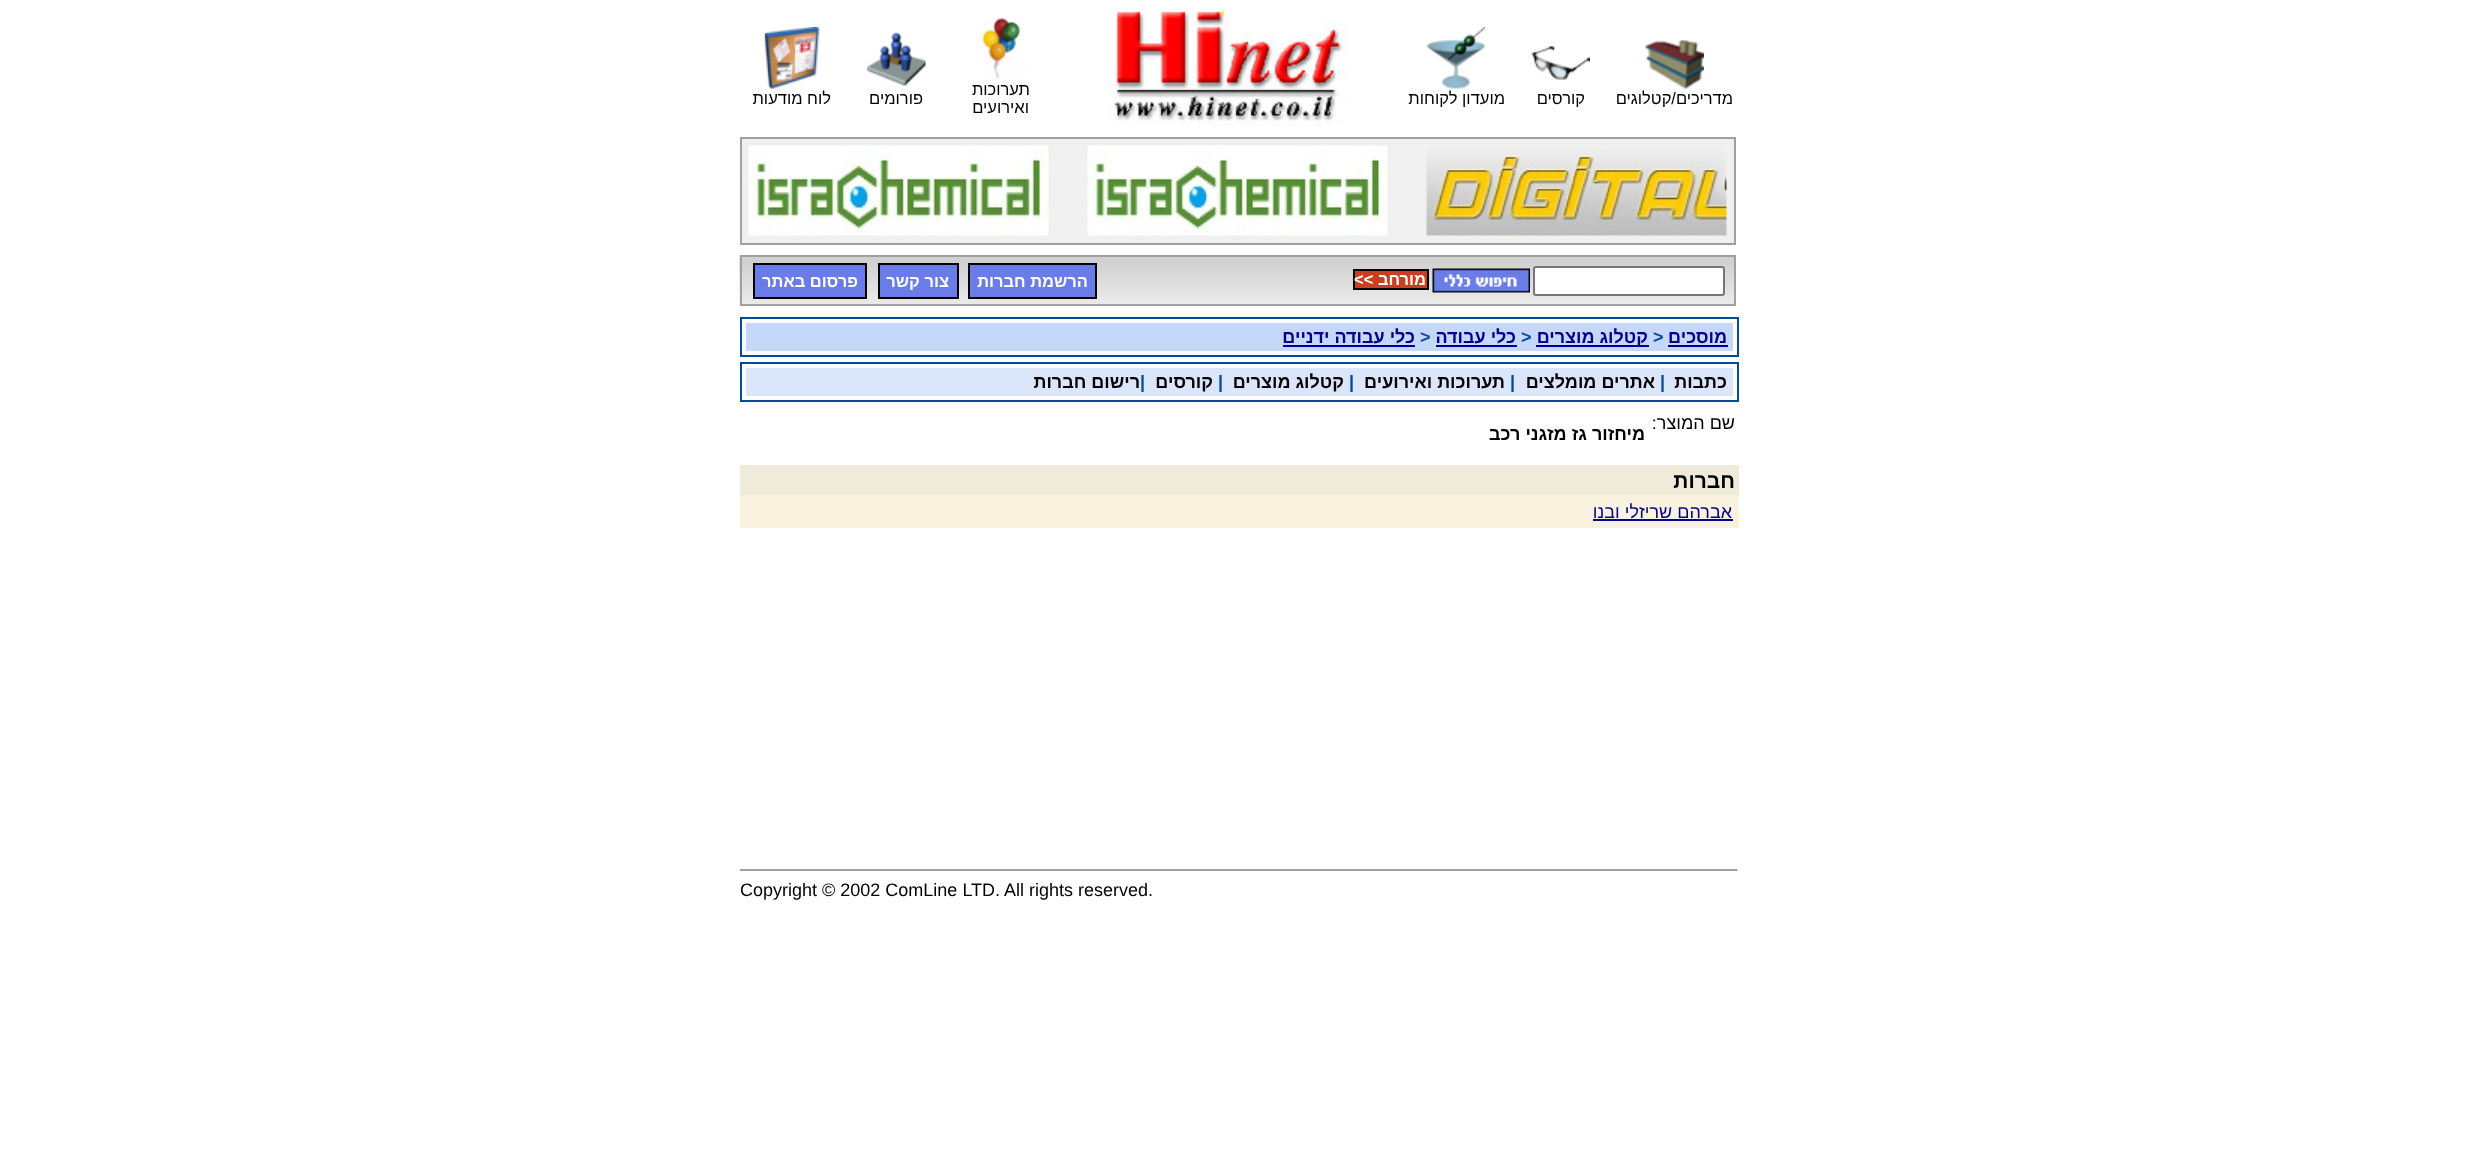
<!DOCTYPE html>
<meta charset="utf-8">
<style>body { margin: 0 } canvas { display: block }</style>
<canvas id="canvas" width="2478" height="1169"></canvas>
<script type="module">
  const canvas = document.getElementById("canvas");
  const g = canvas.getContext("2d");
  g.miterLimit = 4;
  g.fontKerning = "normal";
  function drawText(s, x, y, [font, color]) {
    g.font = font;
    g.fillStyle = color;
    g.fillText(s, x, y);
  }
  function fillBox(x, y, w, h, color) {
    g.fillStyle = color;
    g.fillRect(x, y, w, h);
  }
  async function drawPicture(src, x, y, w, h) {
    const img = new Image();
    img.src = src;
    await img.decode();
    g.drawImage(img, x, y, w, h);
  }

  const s1 = ["16.5px Liberation Sans", "#000000"];
  const s2 = ["bold 16.5px Liberation Sans", "#FFFFFF"];
  const s3 = ["bold 18px Liberation Sans", "#00008C"];
  const s4 = ["bold 18px Liberation Sans", "#004C99"];
  const s5 = ["bold 18px Liberation Sans", "#000000"];
  const s6 = ["18px Liberation Sans", "#000000"];
  const s7 = ["bold 21px Liberation Sans", "#000000"];
  const s8 = ["18px Liberation Sans", "#00008C"];

  fillBox(0, 0, 2478, 1169, "#FFFFFF");
  await drawPicture("pic1.png", 1645, 40, 59, 49);
  g.direction = "rtl";
  drawText("מדריכים/קטלוגים", 1733, 104, s1);
  await drawPicture("pic2.png", 1531, 46, 59, 34);
  drawText("קורסים", 1585, 104, s1);
  await drawPicture("pic3.png", 1426, 27, 59, 62);
  drawText("מועדון לקוחות", 1505, 104, s1);
  await drawPicture("pic4.png", 1108, 7, 241, 119);
  await drawPicture("pic5.png", 980, 18, 45, 62);
  drawText("תערוכות", 1030, 95, s1);
  drawText("ואירועים", 1029, 113, s1);
  await drawPicture("pic6.png", 867, 32, 59, 54);
  drawText("פורומים", 923, 104, s1);
  await drawPicture("pic7.png", 764, 27, 56, 62);
  drawText("לוח מודעות", 831, 104, s1);
  g.fillStyle = "#F0F0F0";
  g.beginPath();
  g.rect(741, 138, 994, 106);
  g.fill();
  g.strokeStyle = "#A0A0A0";
  g.lineWidth = 2;
  g.stroke();
  await drawPicture("pic8.png", 1426, 145, 301, 91);
  await drawPicture("pic9.png", 1087, 145, 301, 91);
  await drawPicture("pic10.png", 748, 145, 301, 91);
  await drawPicture("pic11.png", 739, 255, 995, 51);
  g.strokeRect(741, 256, 994, 49);
  g.fillStyle = "#FFFFFF";
  g.beginPath();
  g.roundRect(1534, 267, 190, 28, 2);
  g.fill();
  g.strokeStyle = "#767676";
  g.stroke();
  await drawPicture("pic12.png", 1432, 268, 98, 25);
  fillBox(1355, 271, 72, 17, "#CA3F1F");
  drawText("מורחב", 1426, 285, s2);
  fillBox(1353, 269, 75, 2, "#000000");
  fillBox(1427, 269, 2, 21, "#000000");
  fillBox(1379, 288, 49, 2, "#000000");
  fillBox(1353, 288, 26, 2, "#000000");
  fillBox(1353, 269, 2, 21, "#000000");
  g.direction = "ltr";
  drawText("<<", 1354, 285, s2);
  g.fillStyle = "#6A7CE8";
  g.beginPath();
  g.rect(969, 264, 127, 34);
  g.fill();
  g.strokeStyle = "#000000";
  g.stroke();
  g.direction = "rtl";
  drawText("הרשמת חברות", 1088, 287, s2);
  g.fillStyle = "#6A7CE8";
  g.beginPath();
  g.rect(879, 264, 79, 34);
  g.fill();
  g.stroke();
  drawText("צור קשר", 949, 287, s2);
  g.fillStyle = "#6A7CE8";
  g.beginPath();
  g.rect(754, 264, 112, 34);
  g.fill();
  g.stroke();
  drawText("פרסום באתר", 858, 287, s2);
  g.strokeStyle = "#004C99";
  g.strokeRect(741, 318, 997, 38);
  fillBox(746, 323, 987, 28, "#C6D8FA");
  drawText("מוסכים", 1727, 343, s3);
  fillBox(1668, 345, 60, 2, "#00008C");
  g.direction = "ltr";
  drawText(">", 1653, 343, s4);
  fillBox(1536, 345, 113, 2, "#00008C");
  g.direction = "rtl";
  drawText("קטלוג מוצרים", 1648, 343, s3);
  g.direction = "ltr";
  drawText(">", 1521, 343, s4);
  g.direction = "rtl";
  drawText("כלי עבודה", 1516, 343, s3);
  fillBox(1436, 345, 81, 2, "#00008C");
  g.direction = "ltr";
  drawText(">", 1420, 343, s4);
  g.direction = "rtl";
  drawText("כלי עבודה ידניים", 1415, 343, s3);
  fillBox(1283, 345, 132, 2, "#00008C");
  g.strokeRect(741, 363, 997, 38);
  fillBox(746, 368, 987, 28, "#DBE6FB");
  drawText("כתבות", 1727, 388, s5);
  g.direction = "ltr";
  drawText("|", 1660, 388, s4);
  g.direction = "rtl";
  drawText("אתרים מומלצים", 1655, 388, s5);
  g.direction = "ltr";
  drawText("|", 1510, 388, s4);
  g.direction = "rtl";
  drawText("תערוכות ואירועים", 1505, 388, s5);
  g.direction = "ltr";
  drawText("|", 1349, 388, s4);
  g.direction = "rtl";
  drawText("קטלוג מוצרים", 1344, 388, s5);
  g.direction = "ltr";
  drawText("|", 1218, 388, s4);
  g.direction = "rtl";
  drawText("קורסים", 1213, 388, s5);
  g.direction = "ltr";
  drawText("|", 1140, 388, s4);
  g.direction = "rtl";
  drawText("רישום חברות", 1140, 388, s5);
  drawText("שם המוצר:", 1735, 429, s6);
  drawText("מיחזור גז מזגני רכב", 1645, 440, s5);
  fillBox(740, 465, 999, 30, "#EFEAD9");
  drawText("חברות", 1735, 488, s7);
  fillBox(740, 495, 999, 33, "#F8F2DF");
  drawText("אברהם שריזלי ובנו", 1732, 518, s8);
  fillBox(1593, 519, 140, 2, "#00008C");
  fillBox(740, 869, 999, 2, "#9F9F9F");
  fillBox(1737, 869, 2, 2, "#EEEEEE");
  g.direction = "ltr";
  drawText("Copyright © 2002 ComLine LTD. All rights reserved.", 740, 896, s6);
</script>
